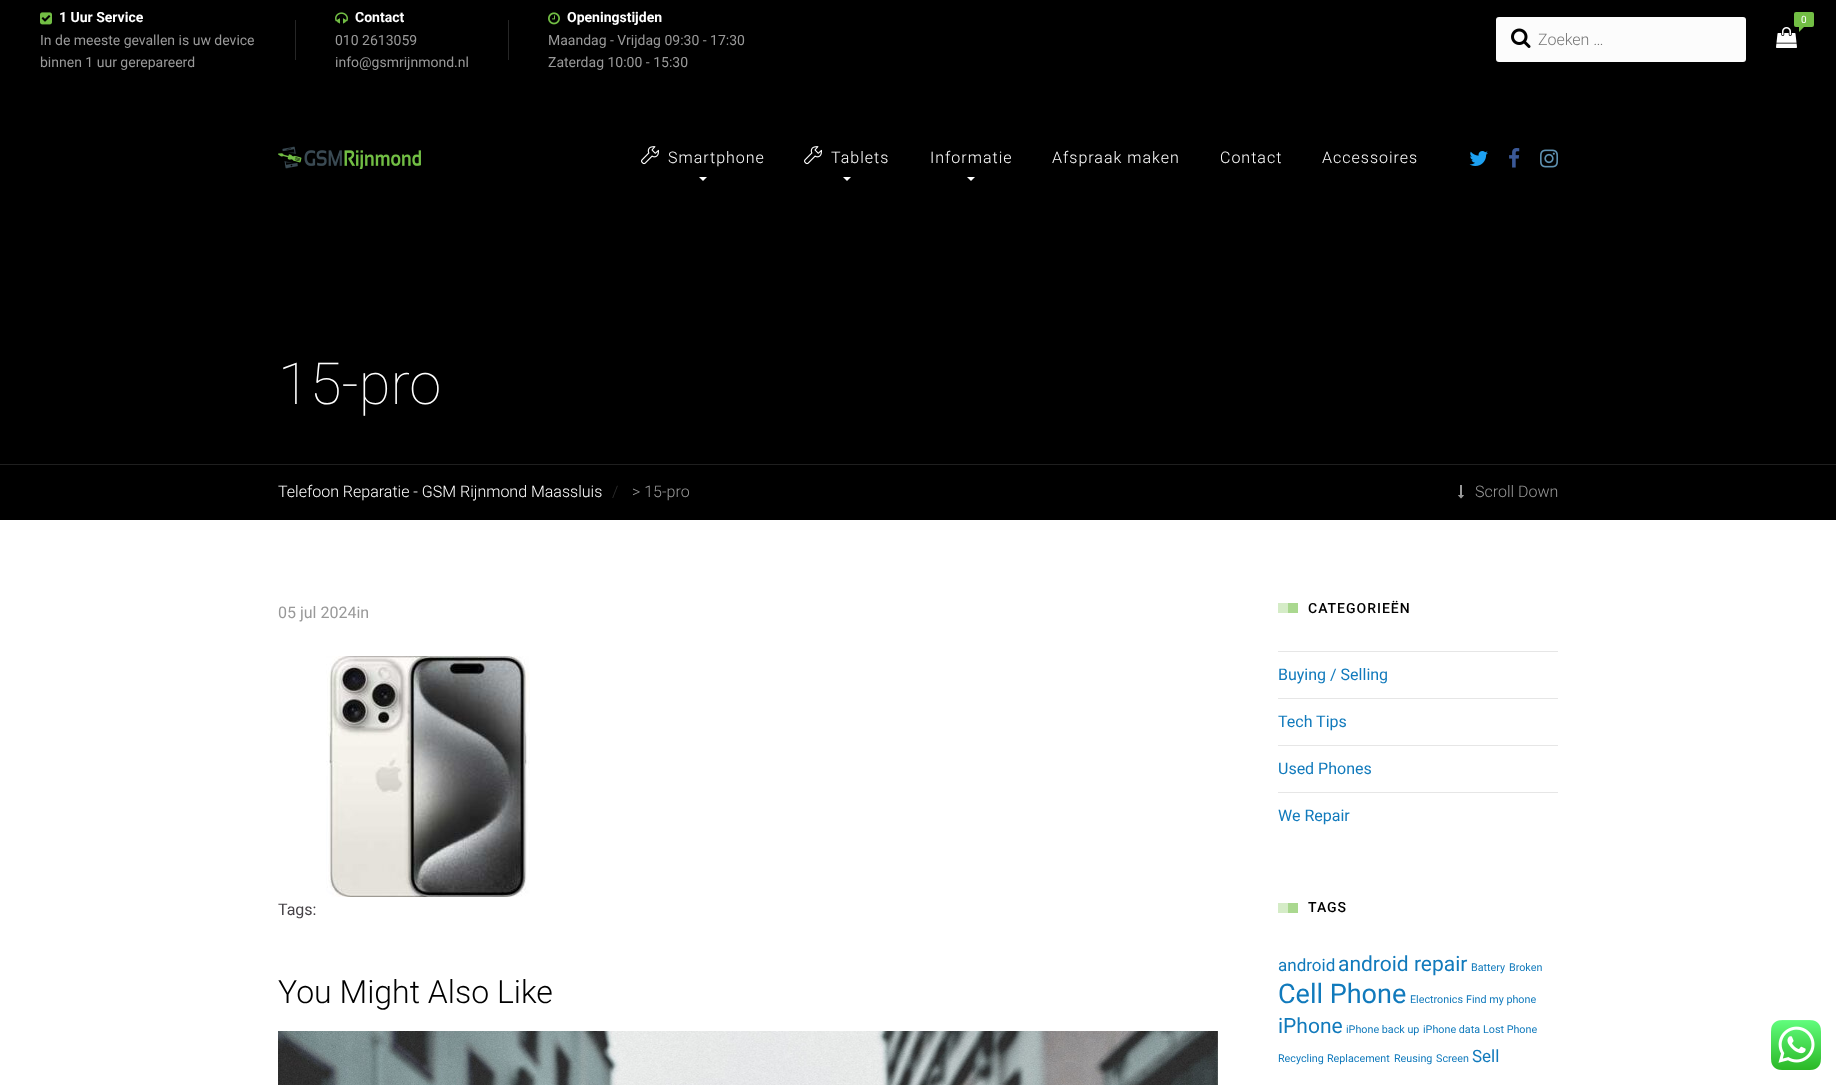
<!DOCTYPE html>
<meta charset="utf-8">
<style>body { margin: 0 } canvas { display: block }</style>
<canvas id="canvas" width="1836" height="1085"></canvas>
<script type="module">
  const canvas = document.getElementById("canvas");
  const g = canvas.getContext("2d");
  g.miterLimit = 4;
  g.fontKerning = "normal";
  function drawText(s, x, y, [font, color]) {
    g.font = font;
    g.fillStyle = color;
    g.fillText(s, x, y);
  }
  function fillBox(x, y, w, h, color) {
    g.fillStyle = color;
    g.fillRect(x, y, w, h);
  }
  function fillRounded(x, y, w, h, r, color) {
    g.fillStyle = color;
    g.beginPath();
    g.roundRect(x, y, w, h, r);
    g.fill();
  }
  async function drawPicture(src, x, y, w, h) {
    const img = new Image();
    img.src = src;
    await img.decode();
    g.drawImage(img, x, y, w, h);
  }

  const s1 = ["bold 14px Roboto", "#FFFFFF"];
  const s2 = ["14px Roboto", "#999999"];
  const s3 = ["10px Roboto", "#FFFFFF"];
  const s4 = ["300 16px Roboto", "#757575"];
  const s5 = ["300 16px Roboto", "#FFFFFF"];
  const s6 = ["100 58px Roboto", "#FFFFFF"];
  const s7 = ["300 16px Roboto", "#2E2E2E"];
  const s8 = ["300 16px Roboto", "#999999"];
  const s9 = ["16px Roboto", "#999999"];
  const s10 = ["16px Roboto", "#464247"];
  const s11 = ["300 32px Roboto", "#000000"];
  const s12 = ["500 14px Roboto", "#000000"];
  const s13 = ["16px Roboto", "#117ABC"];
  const s14 = ["17px Roboto", "#117ABC"];
  const s15 = ["21px Roboto", "#117ABC"];
  const s16 = ["10.75px Roboto", "#117ABC"];
  const s17 = ["27px Roboto", "#117ABC"];

  fillBox(0, 0, 1836, 1085, "#FFFFFF");
  fillBox(0, 0, 1836, 520, "#000000");
  await drawPicture("pic1.png", 40, 12, 12, 13);
  drawText("1 Uur Service", 59, 22, s1);
  drawText("In de meeste gevallen is uw device", 40, 45, s2);
  drawText("binnen 1 uur gerepareerd", 40, 67, s2);
  fillBox(295, 20, 1, 40, "#262626");
  await drawPicture("pic2.png", 335, 12, 13, 12);
  drawText("Contact", 355, 22, s1);
  drawText("010 2613059", 335, 45, s2);
  drawText("info@gsmrijnmond.nl", 335, 67, s2);
  fillBox(508, 20, 1, 40, "#262626");
  await drawPicture("pic3.png", 548, 12, 12, 13);
  drawText("Openingstijden", 567, 22, s1);
  drawText("Maandag - Vrijdag 09:30 - 17:30", 548, 45, s2);
  drawText("Zaterdag 10:00 - 15:30", 548, 67, s2);
  fillRounded(1794, 12, 20, 15, 2, "#72BE44");
  drawText("0", 1801, 23, s3);
  g.fillStyle = "#72BE44";
  g.beginPath();
  g.moveTo(1799, 27);
  g.lineTo(1804, 27);
  g.lineTo(1799, 32);
  g.closePath();
  g.fill();
  await drawPicture("pic4.png", 1776, 27, 21, 21);
  fillRounded(1496, 17, 250, 45, 3, "#FCFCFC");
  await drawPicture("pic5.png", 1511, 28, 20, 20);
  drawText("Zoeken …", 1538, 45, s4);
  await drawPicture("pic6.png", 278, 146, 143, 23);
  await drawPicture("pic7.png", 641, 146, 18, 19);
  g.letterSpacing = "1px";
  drawText("Smartphone", 668, 163, s5);
  g.beginPath();
  g.moveTo(699, 177);
  g.lineTo(707, 177);
  g.lineTo(703, 181);
  g.closePath();
  g.fill();
  await drawPicture("pic7.png", 804, 146, 18, 19);
  drawText("Tablets", 831, 163, s5);
  g.beginPath();
  g.moveTo(843, 177);
  g.lineTo(851, 177);
  g.lineTo(847, 181);
  g.closePath();
  g.fill();
  drawText("Informatie", 930, 163, s5);
  g.beginPath();
  g.moveTo(967, 177);
  g.lineTo(975, 177);
  g.lineTo(971, 181);
  g.closePath();
  g.fill();
  drawText("Afspraak maken", 1052, 163, s5);
  drawText("Contact", 1220, 163, s5);
  drawText("Accessoires", 1322, 163, s5);
  await drawPicture("pic8.png", 1469, 151, 19, 15);
  await drawPicture("pic9.png", 1509, 148, 11, 20);
  await drawPicture("pic10.png", 1540, 149, 18, 19);
  g.letterSpacing = "0px";
  drawText("15-pro", 278, 404, s6);
  fillBox(0, 464, 1836, 1, "#1F1F1F");
  drawText("Telefoon Reparatie - GSM Rijnmond Maassluis", 278, 497, s5);
  drawText("/", 612, 497, s7);
  drawText("> 15-pro", 632, 497, s8);
  await drawPicture("pic11.png", 1458, 485, 6, 14);
  drawText("Scroll Down", 1475, 497, s8);
  drawText("05 jul 2024in", 278, 618, s9);
  await drawPicture("pic12.png", 326, 656, 204, 241);
  drawText("Tags:", 278, 915, s10);
  drawText("You Might Also Like", 278, 1003, s11);
  await drawPicture("pic13.png", 278, 1031, 940, 54);
  fillBox(1278, 603, 10, 10, "#D5ECC7");
  fillBox(1288, 603, 10, 10, "#AAD88F");
  g.letterSpacing = "1px";
  drawText("CATEGORIEËN", 1308, 613, s12);
  fillBox(1278, 651, 280, 1, "#E6E6E6");
  g.letterSpacing = "0px";
  drawText("Buying / Selling", 1278, 680, s13);
  fillBox(1278, 698, 280, 1, "#E6E6E6");
  drawText("Tech Tips", 1278, 727, s13);
  fillBox(1278, 745, 280, 1, "#E6E6E6");
  drawText("Used Phones", 1278, 774, s13);
  fillBox(1278, 792, 280, 1, "#E6E6E6");
  drawText("We Repair", 1278, 821, s13);
  fillBox(1278, 903, 10, 10, "#D5ECC7");
  fillBox(1288, 903, 10, 10, "#AAD88F");
  g.letterSpacing = "1px";
  drawText("TAGS", 1308, 912, s12);
  g.letterSpacing = "0px";
  drawText("android", 1278, 971, s14);
  drawText("android repair", 1338, 971, s15);
  drawText("Battery", 1471, 971, s16);
  drawText("Broken", 1509, 971, s16);
  drawText("Cell Phone", 1278, 1003, s17);
  drawText("Electronics", 1410, 1003, s16);
  drawText("Find my phone", 1466, 1003, s16);
  drawText("iPhone", 1278, 1033, s15);
  drawText("iPhone back up", 1346, 1033, s16);
  drawText("iPhone data", 1423, 1033, s16);
  drawText("Lost Phone", 1483, 1033, s16);
  drawText("Recycling", 1278, 1062, s16);
  drawText("Replacement", 1327, 1062, s16);
  drawText("Reusing", 1394, 1062, s16);
  drawText("Screen", 1436, 1062, s16);
  drawText("Sell", 1472, 1062, s14);
  await drawPicture("pic14.png", 1771, 1020, 50, 50);
</script>
